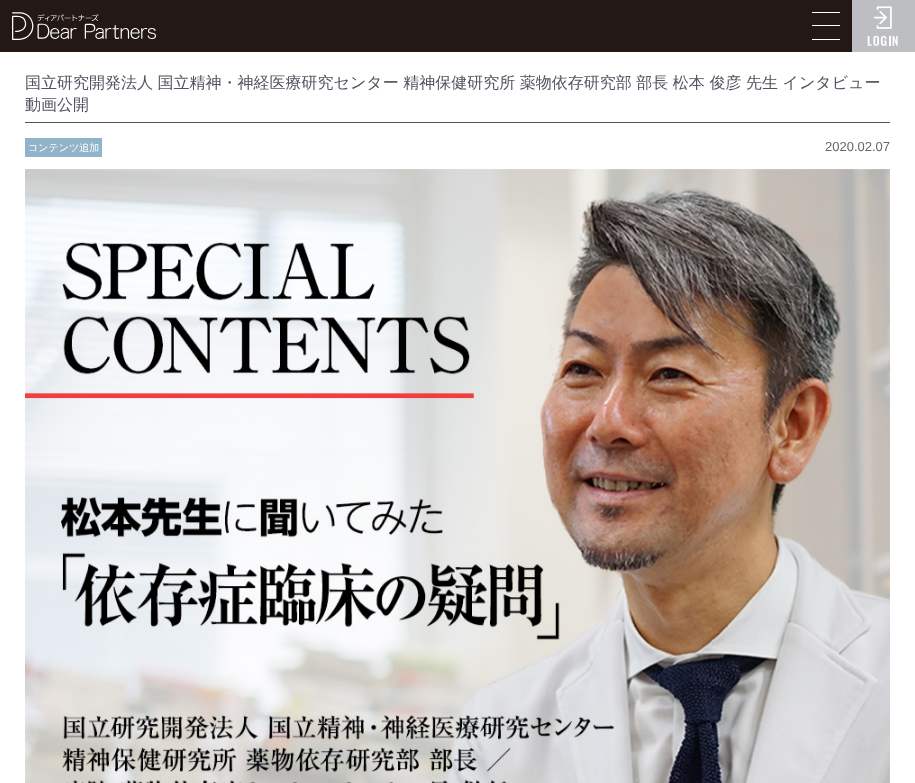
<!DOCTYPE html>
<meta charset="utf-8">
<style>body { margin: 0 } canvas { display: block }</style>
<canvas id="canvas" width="915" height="783"></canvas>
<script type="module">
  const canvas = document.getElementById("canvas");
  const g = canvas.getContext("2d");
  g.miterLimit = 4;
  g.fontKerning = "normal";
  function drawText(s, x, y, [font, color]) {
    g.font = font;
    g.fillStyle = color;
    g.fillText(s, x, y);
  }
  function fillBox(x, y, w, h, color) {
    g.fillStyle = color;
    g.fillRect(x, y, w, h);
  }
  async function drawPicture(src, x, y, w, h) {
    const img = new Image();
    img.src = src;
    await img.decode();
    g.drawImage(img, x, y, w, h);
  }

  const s1 = ["500 16px WenQuanYi Zen Hei", "#51545F"];
  const s2 = ["500 10px WenQuanYi Zen Hei", "#FFFFFF"];
  const s3 = ["13px Liberation Sans", "#666666"];

  fillBox(0, 0, 915, 783, "#FFFFFF");
  fillBox(0, 0, 852, 52, "#231815");
  await drawPicture("pic1.png", 12, 12, 144, 28);
  fillBox(812, 12, 28, 1, "#FFFFFF");
  fillBox(812, 25, 28, 1, "#FFFFFF");
  fillBox(812, 39, 28, 1, "#FFFFFF");
  fillBox(852, 0, 63, 52, "#BDBEC2");
  await drawPicture("pic2.png", 867, 6, 31, 40);
  fillBox(25, 122, 865, 1, "#51545F");
  g.wordSpacing = "-0.25px";
  drawText("国立研究開発法人 国立精神・神経医療研究センター 精神保健研究所 薬物依存研究部 部長 松本 俊彦 先生 インタビュー", 25, 88, s1);
  g.wordSpacing = "0px";
  drawText("動画公開", 25, 110, s1);
  fillBox(25, 138, 77, 19, "#91B4CA");
  drawText("コンテンツ追加", 28, 151, s2);
  drawText("2020.02.07", 825, 151, s3);
  await drawPicture("pic3.png", 25, 169, 865, 614);
</script>
